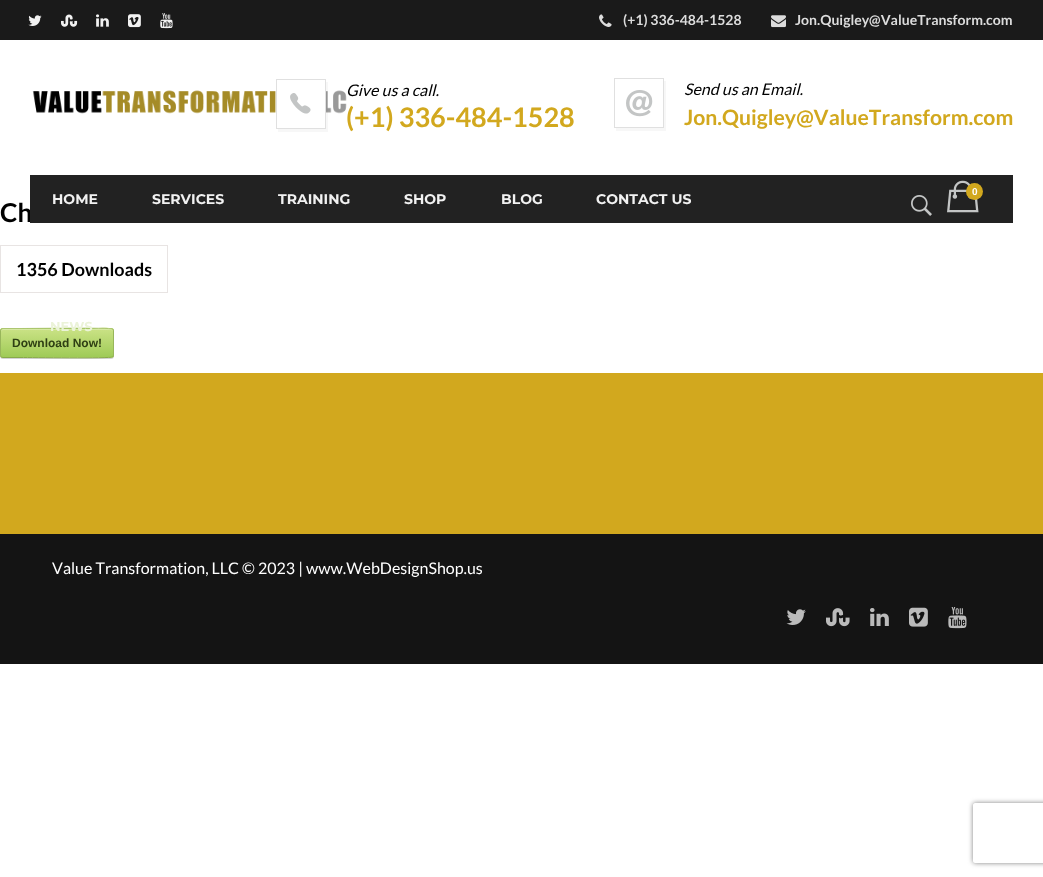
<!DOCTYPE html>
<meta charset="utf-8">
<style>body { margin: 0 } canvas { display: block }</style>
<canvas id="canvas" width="1043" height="877"></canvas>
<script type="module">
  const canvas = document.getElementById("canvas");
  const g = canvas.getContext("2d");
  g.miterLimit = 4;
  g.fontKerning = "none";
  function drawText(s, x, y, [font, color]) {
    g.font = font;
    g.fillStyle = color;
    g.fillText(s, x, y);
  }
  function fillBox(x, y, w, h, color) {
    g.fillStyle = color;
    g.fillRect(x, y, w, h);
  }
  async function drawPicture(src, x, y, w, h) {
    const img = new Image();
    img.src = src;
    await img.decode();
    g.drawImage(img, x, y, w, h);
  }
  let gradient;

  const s1 = ["bold 14px Lato", "#DCDCDC"];
  const s2 = ["italic 16px Lato", "#000000"];
  const s3 = ["bold 27px Lato", "#D2A81E"];
  const s4 = ["bold 21.2px Lato", "#D2A81E"];
  const s5 = ["bold 26px Lato", "#000000"];
  const s6 = ["bold 10px Liberation Sans", "#FFFFFF"];
  const s7 = ["100 14px Montserrat", "#F1F1F1"];
  const s8 = ["100 13px Montserrat", "#EBF3D8"];
  const s9 = ["bold 18px Lato", "#000000"];
  const s10 = ["bold 12px Liberation Sans", "#2F4014"];
  const s11 = ["16px Lato", "#FFFFFF"];

  fillBox(0, 0, 1043, 877, "#FFFFFF");
  fillBox(0, 0, 1043, 40, "#1A1A1A");
  await drawPicture("pic1.png", 28, 15, 14, 11);
  await drawPicture("pic2.png", 61, 14, 17, 13);
  await drawPicture("pic3.png", 96, 14, 13, 13);
  await drawPicture("pic4.png", 128, 14, 13, 14);
  await drawPicture("pic5.png", 160, 13, 13, 16);
  await drawPicture("pic6.png", 599, 14, 13, 13);
  drawText("(+1) 336-484-1528", 623, 25, s1);
  await drawPicture("pic7.png", 771, 15, 15, 13);
  drawText("Jon.Quigley@ValueTransform.com", 795, 25, s1);
  await drawPicture("pic8.png", 32, 90, 315, 24);
  g.fillStyle = "rgba(0, 0, 0, 0.03)";
  g.beginPath();
  g.moveTo(278, 128);
  g.lineTo(278, 132);
  g.lineTo(328, 132);
  g.lineTo(328, 82);
  g.lineTo(326, 82);
  g.lineTo(326, 128);
  g.closePath();
  g.fill();
  fillBox(278, 90, 47, 24, "#FFFFFF");
  g.strokeStyle = "#E0E0E0";
  g.strokeRect(276.5, 79.5, 49, 49);
  await drawPicture("pic9.png", 290, 93, 21, 21);
  drawText("Give us a call.", 346, 96, s2);
  drawText("(+1) 336-484-1528", 346, 127, s3);
  g.fillStyle = "#F7F7F7";
  g.beginPath();
  g.moveTo(616, 128);
  g.lineTo(616, 131);
  g.lineTo(666, 131);
  g.lineTo(666, 81);
  g.lineTo(664, 81);
  g.lineTo(664, 128);
  g.closePath();
  g.fill();
  g.strokeRect(614.5, 78.5, 49, 49);
  await drawPicture("pic10.png", 626, 90, 27, 27);
  drawText("Send us an Email.", 684, 95, s2);
  drawText("Jon.Quigley@ValueTransform.com", 684, 125, s4);
  drawText("Ch", 0, 222, s5);
  fillBox(30, 175, 983, 48, "#222222");
  await drawPicture("pic11.png", 947, 180, 32, 33);
  g.fillStyle = "#D2A81E";
  g.beginPath();
  g.arc(974.5, 191.5, 8.5, 0, Math.PI * 2);
  g.fill();
  drawText("0", 972, 195, s6);
  await drawPicture("pic12.png", 911, 195, 21, 21);
  drawText("HOME", 52, 204, s7);
  g.fillStyle = "#D3D3D3";
  g.filter = "blur(0.5px)";
  g.beginPath();
  g.roundRect(0, 329, 114, 30, 3);
  g.fill();
  g.filter = "none";
  g.save();
  g.beginPath();
  g.roundRect(0, 328, 114, 30, 3);
  g.clip();
  gradient = g.createLinearGradient(1, 301, 1, 329);
  gradient.addColorStop(0, "#CAE285");
  gradient.addColorStop(1, "#9FCB57");
  g.fillStyle = gradient;
  g.fillRect(0, 328, 114, 1);
  gradient = g.createLinearGradient(1, 329, 1, 357);
  gradient.addColorStop(0, "#CAE285");
  gradient.addColorStop(1, "#9FCB57");
  g.fillStyle = gradient;
  g.fillRect(0, 329, 114, 28);
  g.restore();
  g.fillStyle = "#D7E9A4";
  g.beginPath();
  g.moveTo(3, 330);
  g.lineTo(111, 330);
  g.bezierCurveTo(112, 330, 113, 331, 113, 332);
  g.bezierCurveTo(113, 324, 93, 329, 93, 329);
  g.lineTo(3, 329);
  g.bezierCurveTo(1, 329, 1, 331, 1, 332);
  g.bezierCurveTo(1, 331, 2, 330, 3, 330);
  g.closePath();
  g.fill();
  g.beginPath();
  g.moveTo(1, 329);
  g.lineTo(3, 328.5);
  g.lineTo(21, 328.5);
  g.bezierCurveTo(30, 328.5, 110.5, 327.5, 112.5, 329);
  g.lineTo(113, 329);
  g.strokeStyle = "#ADC671";
  g.stroke();
  drawText("NEWS", 50, 331, s8);
  drawText("SERVICES", 152, 204, s7);
  drawText("TRAINING", 278, 204, s7);
  drawText("SHOP", 404, 204, s7);
  drawText("BLOG", 501, 204, s7);
  drawText("CONTACT US", 596, 204, s7);
  g.strokeStyle = "#E8E4E3";
  g.strokeRect(0.5, 245.5, 167, 47);
  drawText("1356 Downloads", 16, 276, s9);
  g.save();
  g.beginPath();
  g.roundRect(0, 328, 114, 30, 3);
  g.clip();
  gradient = g.createLinearGradient(1, 357, 1, 385);
  gradient.addColorStop(0, "#CAE285");
  gradient.addColorStop(1, "#9FCB57");
  g.fillStyle = gradient;
  g.fillRect(0, 357, 114, 1);
  g.restore();
  g.beginPath();
  g.moveTo(113, 329);
  g.bezierCurveTo(113, 329.5, 113.5, 330.5, 113.5, 331);
  g.lineTo(113.5, 355);
  g.bezierCurveTo(113.5, 355.5, 113, 356.5, 113, 357);
  g.strokeStyle = "#98B65B";
  g.stroke();
  g.beginPath();
  g.moveTo(113, 357);
  g.lineTo(112.5, 357);
  g.bezierCurveTo(110.5, 358.5, 30, 357.5, 21, 357.5);
  g.lineTo(3, 357.5);
  g.lineTo(1, 357);
  g.strokeStyle = "#87AA4A";
  g.stroke();
  g.beginPath();
  g.moveTo(1, 357);
  g.bezierCurveTo(1, 356.5, 0.5, 355.5, 0.5, 355);
  g.lineTo(0.5, 331);
  g.bezierCurveTo(0.5, 330.5, 1, 329.5, 1, 329);
  g.strokeStyle = "#98B65B";
  g.stroke();
  drawText("Download Now!", 12, 347, s10);
  fillBox(0, 373, 1043, 161, "#D2A81E");
  fillBox(0, 534, 1043, 130, "#141414");
  drawText("Value Transformation, LLC © 2023 | www.WebDesignShop.us", 52, 574, s11);
  drawText("", 482, 574, s11);
  await drawPicture("pic13.png", 786, 609, 20, 16);
  await drawPicture("pic14.png", 826, 608, 24, 19);
  await drawPicture("pic15.png", 870, 608, 19, 18);
  await drawPicture("pic16.png", 909, 607, 19, 20);
  await drawPicture("pic17.png", 948, 607, 19, 22);
  g.save();
  g.beginPath();
  g.moveTo(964, 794);
  g.lineTo(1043, 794);
  g.lineTo(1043, 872);
  g.lineTo(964, 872);
  g.closePath();
  g.moveTo(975, 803);
  g.lineTo(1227, 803);
  g.bezierCurveTo(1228, 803, 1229, 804, 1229, 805);
  g.lineTo(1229, 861);
  g.bezierCurveTo(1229, 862, 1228, 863, 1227, 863);
  g.lineTo(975, 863);
  g.bezierCurveTo(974, 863, 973, 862, 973, 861);
  g.lineTo(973, 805);
  g.bezierCurveTo(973, 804, 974, 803, 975, 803);
  g.closePath();
  g.clip("evenodd");
  g.fillStyle = "#808080";
  g.filter = "blur(2.5px)";
  g.beginPath();
  g.roundRect(973, 803, 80, 60, 2);
  g.fill();
  g.filter = "none";
  g.restore();
</script>
